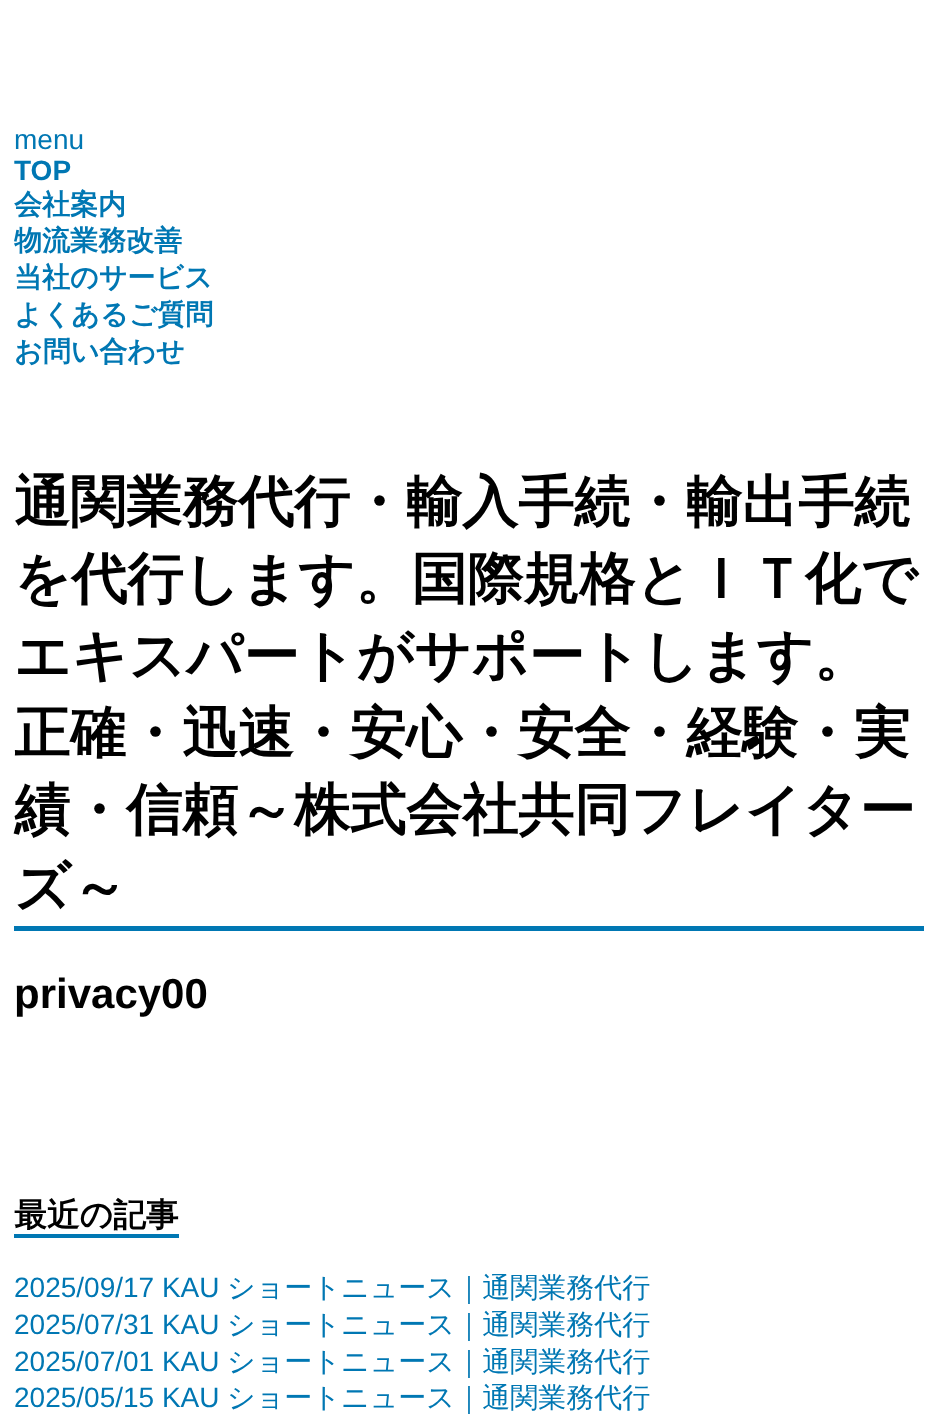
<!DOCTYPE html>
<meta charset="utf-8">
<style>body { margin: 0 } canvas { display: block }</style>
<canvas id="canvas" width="938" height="1426"></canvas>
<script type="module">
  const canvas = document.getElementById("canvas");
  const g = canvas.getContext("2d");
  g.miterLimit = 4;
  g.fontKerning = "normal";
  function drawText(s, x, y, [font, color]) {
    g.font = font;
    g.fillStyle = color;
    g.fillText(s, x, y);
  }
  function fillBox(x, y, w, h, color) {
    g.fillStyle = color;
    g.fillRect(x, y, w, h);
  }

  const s1 = ["28px Liberation Sans", "#0077B3"];
  const s2 = ["bold 28px Liberation Sans", "#0077B3"];
  const s3 = ["bold 28px WenQuanYi Zen Hei", "#0077B3"];
  const s4 = ["bold 56px WenQuanYi Zen Hei", "#000000"];
  const s5 = ["bold 42px Liberation Sans", "#000000"];
  const s6 = ["bold 32.75px WenQuanYi Zen Hei", "#000000"];
  const s7 = ["500 28px WenQuanYi Zen Hei", "#0077B3"];

  fillBox(0, 0, 938, 1426, "#FFFFFF");
  drawText("menu", 14, 149, s1);
  drawText("TOP", 14, 180, s2);
  drawText("会社案内", 14, 214, s3);
  drawText("物流業務改善", 14, 250, s3);
  drawText("当社のサービス", 14, 287, s3);
  drawText("よくあるご質問", 14, 324, s3);
  drawText("お問い合わせ", 14, 361, s3);
  fillBox(14, 926, 910, 5, "#0077B3");
  drawText("通関業務代行・輸入手続・輸出手続", 14, 521, s4);
  drawText("を代行します。国際規格とＩＴ化で", 14, 598, s4);
  drawText("エキスパートがサポートします。", 14, 675, s4);
  drawText("正確・迅速・安心・安全・経験・実", 14, 752, s4);
  drawText("績・信頼～株式会社共同フレイター", 14, 829, s4);
  drawText("ズ～", 14, 906, s4);
  drawText("privacy00", 14, 1008, s5);
  drawText("最近の記事", 14, 1226, s6);
  fillBox(14, 1234, 165, 4, "#0077B3");
  drawText("2025/09/17 KAU", 14, 1297, s1);
  drawText("ショートニュース｜通関業務代行", 227, 1297, s7);
  drawText("2025/07/31 KAU", 14, 1334, s1);
  drawText("ショートニュース｜通関業務代行", 227, 1334, s7);
  drawText("2025/07/01 KAU", 14, 1371, s1);
  drawText("ショートニュース｜通関業務代行", 227, 1371, s7);
  drawText("2025/05/15 KAU", 14, 1407, s1);
  drawText("ショートニュース｜通関業務代行", 227, 1407, s7);
</script>
